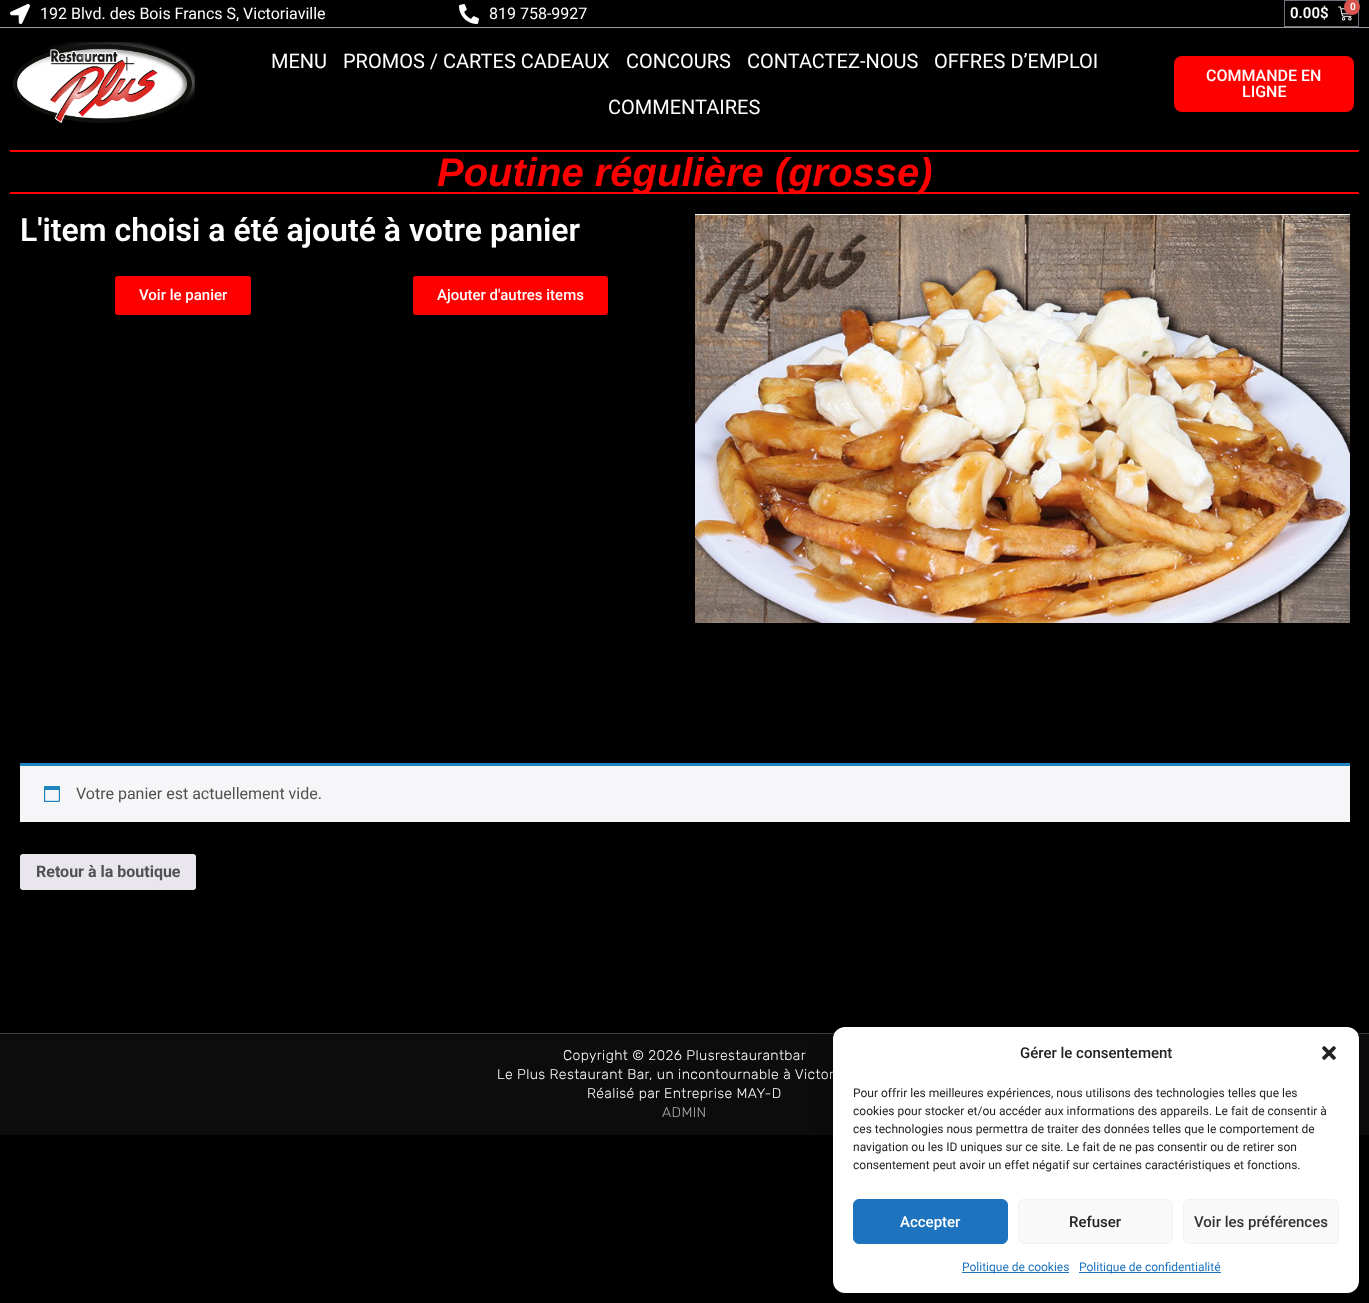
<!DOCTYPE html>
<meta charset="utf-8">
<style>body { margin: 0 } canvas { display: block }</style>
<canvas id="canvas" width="1369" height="1303"></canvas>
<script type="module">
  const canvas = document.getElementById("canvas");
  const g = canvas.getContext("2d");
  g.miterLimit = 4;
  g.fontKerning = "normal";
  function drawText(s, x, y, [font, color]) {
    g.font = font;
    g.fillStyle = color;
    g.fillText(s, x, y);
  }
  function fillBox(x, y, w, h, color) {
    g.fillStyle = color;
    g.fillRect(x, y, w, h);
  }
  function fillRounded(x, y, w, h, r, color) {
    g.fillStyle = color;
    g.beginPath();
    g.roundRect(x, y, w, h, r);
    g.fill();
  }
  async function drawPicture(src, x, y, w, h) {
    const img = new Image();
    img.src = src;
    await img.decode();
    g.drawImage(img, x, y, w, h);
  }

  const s1 = ["16px Roboto", "#FFFFFF"];
  const s2 = ["600 15px Roboto", "#FFFFFF"];
  const s3 = ["600 10px Roboto", "#FFFFFF"];
  const s4 = ["20px Roboto", "#FFFFFF"];
  const s5 = ["500 16px Roboto", "#FFFFFF"];
  const s6 = ["italic bold 40px Liberation Sans", "#FF0000"];
  const s7 = ["600 32px Roboto", "#FFFFFF"];
  const s8 = ["500 15px Roboto", "#FFFFFF"];
  const s9 = ["16px Roboto", "#515151"];
  const s10 = ["bold 16px Roboto", "#515151"];
  const s11 = ["300 14px Rubik", "#FFFFFF"];
  const s12 = ["300 14px Rubik", "#ACACAC"];
  const s13 = ["500 15px Roboto", "#222222"];
  const s14 = ["12px Roboto", "#222222"];
  const s15 = ["500 15px Roboto", "#333333"];
  const s16 = ["12px Roboto", "#1E73BE"];

  fillBox(0, 0, 1369, 1303, "#000000");
  fillBox(0, 27, 1369, 1, "#9B9B9B");
  await drawPicture("pic1.png", 10, 4, 20, 20);
  drawText("192 Blvd. des Bois Francs S, Victoriaville", 40, 19, s1);
  await drawPicture("pic2.png", 459, 4, 20, 20);
  drawText("819 758-9927", 489, 19, s1);
  g.strokeStyle = "#69727D";
  g.strokeRect(1284.5, 0.5, 74, 26);
  drawText("0.00$", 1290, 18, s2);
  await drawPicture("pic3.png", 1338, 6, 14, 15);
  g.fillStyle = "#D9534F";
  g.beginPath();
  g.arc(1352, 7, 8, 0, Math.PI * 2);
  g.fill();
  drawText("0", 1350, 10, s3);
  await drawPicture("pic4.png", 12, 42, 183, 81);
  drawText("MENU", 271, 68, s4);
  drawText("PROMOS / CARTES CADEAUX", 343, 68, s4);
  drawText("CONCOURS", 626, 68, s4);
  drawText("CONTACTEZ-NOUS", 747, 68, s4);
  drawText("OFFRES D’EMPLOI", 934, 68, s4);
  drawText("COMMENTAIRES", 608, 114, s4);
  fillRounded(1174, 56, 180, 56, 8, "#FF0000");
  drawText("COMMANDE EN", 1206, 81, s5);
  drawText("LIGNE", 1242, 97, s5);
  fillBox(10, 150, 1349, 2, "#FF0000");
  fillBox(10, 192, 1349, 2, "#FF0000");
  drawText("Poutine régulière (grosse)", 437, 186, s6);
  drawText("L'item choisi a été ajouté à votre panier", 20, 241, s7);
  fillRounded(115, 276, 136, 39, 3, "#FF0000");
  drawText("Voir le panier", 139, 300, s8);
  fillRounded(413, 276, 195, 39, 3, "#FF0000");
  drawText("Ajouter d'autres items", 437, 300, s8);
  await drawPicture("pic5.png", 695, 214, 655, 409);
  fillBox(20, 766, 1330, 56, "#F6F5F8");
  fillBox(20, 763, 1330, 3, "#1E85BE");
  await drawPicture("pic6.png", 44, 786, 16, 16);
  drawText("Votre panier est actuellement vide.", 76, 799, s9);
  fillRounded(20, 854, 176, 36, 3, "#E9E6ED");
  drawText("Retour à la boutique", 36, 877, s10);
  fillBox(0, 1034, 1369, 101, "#0C0C0C");
  fillBox(0, 1033, 1369, 1, "#3D3D3D");
  g.letterSpacing = "0.4px";
  drawText("Copyright © 2026 Plusrestaurantbar", 563, 1060, s11);
  drawText("Le Plus Restaurant Bar, un incontournable à Victor", 497, 1079, s11);
  drawText("Réalisé par Entreprise MAY-D", 587, 1098, s11);
  drawText("ADMIN", 662, 1117, s12);
  g.fillStyle = "rgba(0, 0, 0, 0.23)";
  g.filter = "blur(3px)";
  g.beginPath();
  g.roundRect(833, 1033, 526, 266, 12);
  g.fill();
  g.filter = "none";
  g.fillStyle = "rgba(0, 0, 0, 0.19)";
  g.filter = "blur(10px)";
  g.beginPath();
  g.roundRect(833, 1037, 526, 266, 12);
  g.fill();
  g.filter = "none";
  fillRounded(833, 1027, 526, 266, 12, "#FFFFFF");
  g.letterSpacing = "0px";
  drawText("Gérer le consentement", 1020, 1058, s13);
  await drawPicture("pic7.png", 1322, 1046, 14, 14);
  drawText("Pour offrir les meilleures expériences, nous utilisons des technologies telles que les", 853, 1097, s14);
  drawText("cookies pour stocker et/ou accéder aux informations des appareils. Le fait de consentir à", 853, 1115, s14);
  drawText("ces technologies nous permettra de traiter des données telles que le comportement de", 853, 1133, s14);
  drawText("navigation ou les ID uniques sur ce site. Le fait de ne pas consentir ou de retirer son", 853, 1151, s14);
  drawText("consentement peut avoir un effet négatif sur certaines caractéristiques et fonctions.", 853, 1169, s14);
  g.fillStyle = "#1E73BE";
  g.beginPath();
  g.roundRect(853.5, 1199.5, 154, 44, 5.5);
  g.fill();
  g.strokeStyle = "#1E73BE";
  g.stroke();
  drawText("Accepter", 900, 1227, s8);
  g.fillStyle = "#F9F9F9";
  g.beginPath();
  g.roundRect(1018.5, 1199.5, 154, 44, 5.5);
  g.fill();
  g.strokeStyle = "#F2F2F2";
  g.stroke();
  drawText("Refuser", 1069, 1227, s13);
  g.fillStyle = "#F9F9F9";
  g.beginPath();
  g.roundRect(1183.5, 1199.5, 155, 44, 5.5);
  g.fill();
  g.stroke();
  drawText("Voir les préférences", 1194, 1227, s15);
  fillBox(962, 1272, 107, 1, "#1E73BE");
  drawText("Politique de cookies", 962, 1271, s16);
  fillBox(1079, 1272, 142, 1, "#1E73BE");
  drawText("Politique de confidentialité", 1079, 1271, s16);
</script>
